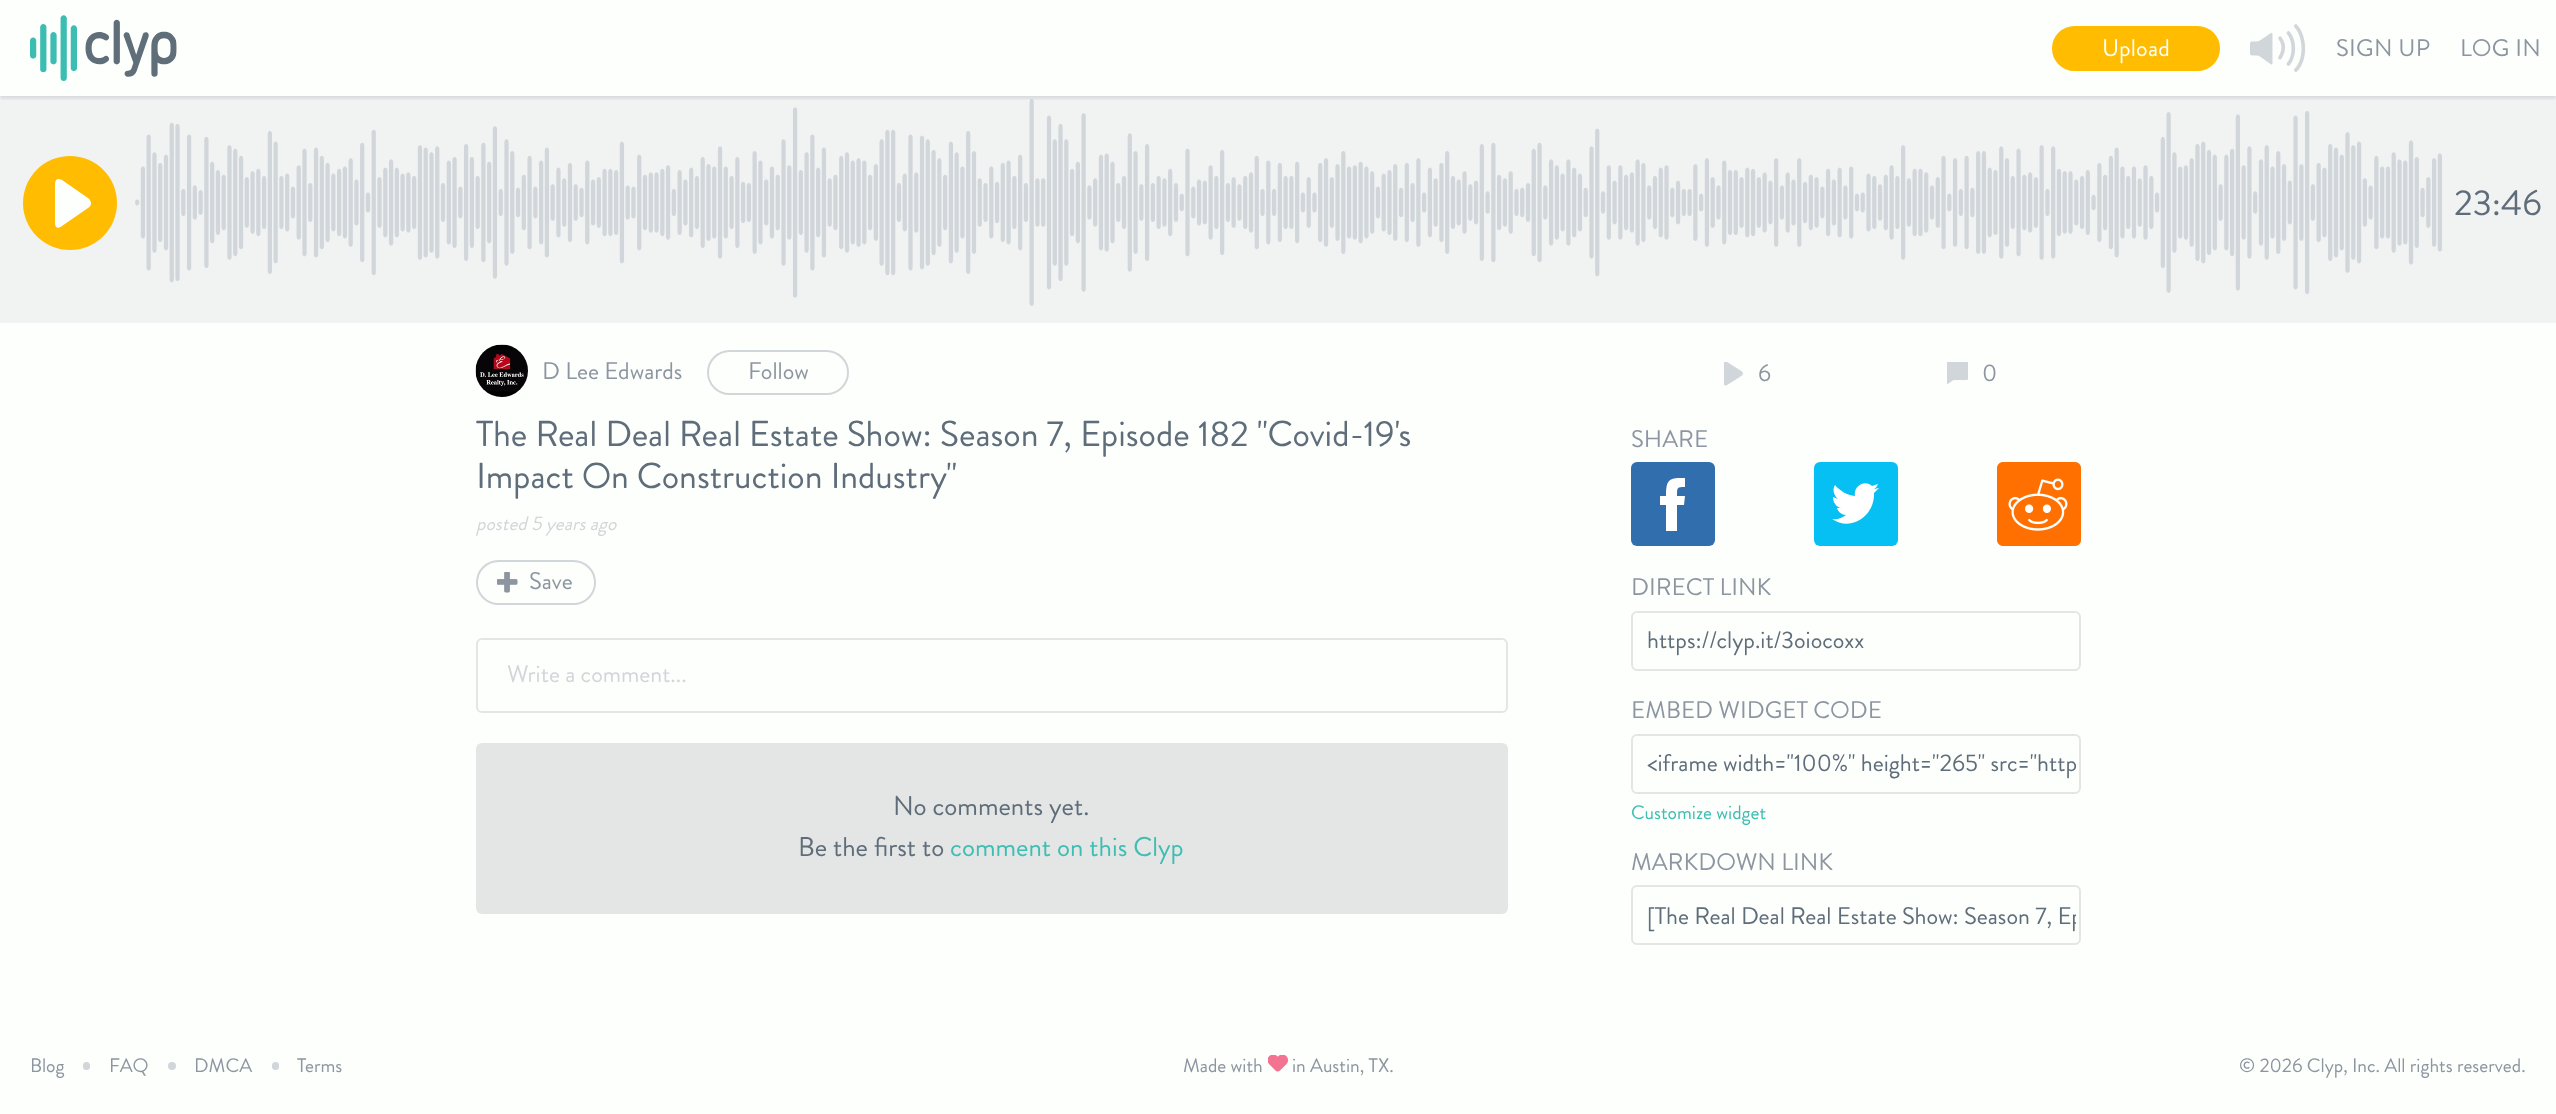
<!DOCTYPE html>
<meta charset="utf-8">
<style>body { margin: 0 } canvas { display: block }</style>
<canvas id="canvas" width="2556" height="1114"></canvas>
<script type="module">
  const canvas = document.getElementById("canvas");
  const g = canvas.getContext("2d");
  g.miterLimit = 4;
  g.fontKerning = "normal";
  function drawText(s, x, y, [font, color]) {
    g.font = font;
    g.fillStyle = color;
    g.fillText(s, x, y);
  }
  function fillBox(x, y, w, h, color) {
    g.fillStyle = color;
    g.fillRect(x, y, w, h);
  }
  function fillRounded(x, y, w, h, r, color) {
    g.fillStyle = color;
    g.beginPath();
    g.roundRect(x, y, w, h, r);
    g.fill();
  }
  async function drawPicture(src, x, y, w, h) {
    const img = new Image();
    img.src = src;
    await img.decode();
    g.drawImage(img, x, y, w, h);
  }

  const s1 = ["24px Brandon Grotesque", "#FDFFFC"];
  const s2 = ["24px Brandon Grotesque", "#8C95A0"];
  const s3 = ["36px Brandon Grotesque", "#5F6D7A"];
  const s4 = ["italic 19.5px Brandon Grotesque", "#D1D6DA"];
  const s5 = ["24px Brandon Grotesque", "#5F6D7A"];
  const s6 = ["19.5px Brandon Grotesque", "#3DBEB3"];
  const s7 = ["24px Brandon Grotesque", "#D1D6DA"];
  const s8 = ["27px Brandon Grotesque", "#5F6D7A"];
  const s9 = ["27px Brandon Grotesque", "#3DBEB3"];
  const s10 = ["19.5px Brandon Grotesque", "#8C95A0"];

  fillBox(0, 0, 2556, 1114, "#FDFFFC");
  fillBox(0, 96, 2556, 227, "#F1F3F3");
  await drawPicture("pic3.png", 135, 99, 2307, 207);
  g.save();
  g.beginPath();
  g.rect(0, 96, 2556, 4);
  g.clip();
  g.fillStyle = "rgba(9, 12, 35, 0.1)";
  g.filter = "blur(1.5px)";
  g.beginPath();
  g.rect(0, 3, 2556, 96);
  g.fill();
  g.filter = "none";
  g.restore();
  await drawPicture("pic1.png", 30, 15, 147, 66);
  g.fillStyle = "#FFBC00";
  g.beginPath();
  g.roundRect(2053, 27, 166, 43, 21.5);
  g.fill();
  g.strokeStyle = "#FFBC00";
  g.lineWidth = 2;
  g.stroke();
  g.letterSpacing = "0.25px";
  drawText("Upload", 2102, 56, s1);
  await drawPicture("pic2.png", 2250, 24, 56, 48);
  drawText("SIGN UP", 2336, 56, s2);
  drawText("LOG IN", 2460, 56, s2);
  g.fillStyle = "#FFBC00";
  g.beginPath();
  g.arc(70, 203, 47, 0, Math.PI * 2);
  g.fill();
  g.fillStyle = "#FDFFFC";
  g.beginPath();
  g.moveTo(88, 208);
  g.bezierCurveTo(92, 206, 92, 201, 88, 198);
  g.lineTo(62, 180);
  g.bezierCurveTo(58, 178, 55, 179, 55, 184);
  g.lineTo(55, 223);
  g.bezierCurveTo(55, 228, 58, 229, 62, 226);
  g.closePath();
  g.fill("evenodd");
  g.letterSpacing = "0px";
  drawText("23:46", 2454, 215, s3);
  await drawPicture("pic4.png", 475, 344, 53, 53);
  drawText("D Lee Edwards", 542, 379, s2);
  g.beginPath();
  g.roundRect(708, 351, 140, 43, 21.5);
  g.strokeStyle = "#D1D6DA";
  g.stroke();
  drawText("Follow", 748, 379, s2);
  drawText("The Real Deal Real Estate Show: Season 7, Episode 182 \"Covid-19's", 476, 446, s3);
  drawText("Impact On Construction Industry\"", 476, 488, s3);
  drawText("posted 5 years ago", 476, 530, s4);
  g.beginPath();
  g.roundRect(477, 561, 118, 43, 21.5);
  g.stroke();
  await drawPicture("pic5.png", 497, 572, 21, 21);
  drawText("Save", 529, 589, s2);
  await drawPicture("pic6.png", 1724, 362, 19, 24);
  drawText("6", 1758, 381, s2);
  await drawPicture("pic7.png", 1947, 362, 21, 22);
  drawText("0", 1982, 381, s2);
  drawText("SHARE", 1631, 447, s2);
  fillRounded(1631, 462, 84, 84, 6, "#316EAD");
  g.fillStyle = "#FFFFFF";
  g.beginPath();
  g.moveTo(1677, 531);
  g.lineTo(1666, 531);
  g.lineTo(1666, 505);
  g.lineTo(1660, 505);
  g.lineTo(1660, 496);
  g.lineTo(1666, 496);
  g.bezierCurveTo(1666, 478, 1670, 478, 1685, 478);
  g.lineTo(1685, 487);
  g.bezierCurveTo(1677, 487, 1677, 487, 1677, 496);
  g.lineTo(1685, 496);
  g.lineTo(1684, 505);
  g.lineTo(1677, 505);
  g.closePath();
  g.fill("evenodd");
  fillRounded(1814, 462, 84, 84, 6, "#06C0F3");
  g.fillStyle = "#FFFFFF";
  g.beginPath();
  g.moveTo(1874, 489);
  g.bezierCurveTo(1876, 488, 1877, 486, 1878, 484);
  g.lineTo(1872, 486);
  g.bezierCurveTo(1865, 479, 1853, 486, 1855, 496);
  g.bezierCurveTo(1847, 495, 1840, 491, 1835, 485);
  g.bezierCurveTo(1832, 489, 1834, 496, 1838, 499);
  g.lineTo(1833, 497);
  g.bezierCurveTo(1833, 502, 1836, 507, 1841, 508);
  g.lineTo(1837, 508);
  g.bezierCurveTo(1838, 512, 1842, 515, 1846, 515);
  g.bezierCurveTo(1842, 518, 1837, 520, 1832, 519);
  g.bezierCurveTo(1851, 532, 1875, 516, 1874, 493);
  g.lineTo(1879, 488);
  g.closePath();
  g.fill("evenodd");
  await drawPicture("pic8.png", 1997, 462, 84, 84);
  drawText("DIRECT LINK", 1631, 595, s2);
  g.beginPath();
  g.roundRect(1632, 612, 448, 58, 5);
  g.strokeStyle = "#E4E5E5";
  g.stroke();
  drawText("https://clyp.it/3oiocoxx", 1647, 648, s5);
  drawText("EMBED WIDGET CODE", 1631, 718, s2);
  g.beginPath();
  g.roundRect(1632, 735, 448, 58, 5);
  g.stroke();
  drawText("<iframe width=\"100%\" height=\"265\" src=\"http", 1647, 771, s5);
  drawText("Customize widget", 1631, 819, s6);
  drawText("MARKDOWN LINK", 1631, 870, s2);
  g.beginPath();
  g.roundRect(1632, 886, 448, 58, 5);
  g.stroke();
  g.save();
  g.beginPath();
  g.rect(1647, 899, 429, 34);
  g.clip();
  drawText("[The Real Deal Real Estate Show: Season 7, Ep", 1647, 924, s5);
  g.restore();
  g.beginPath();
  g.roundRect(477, 639, 1030, 73, 5);
  g.stroke();
  drawText("Write a comment...", 507, 682, s7);
  fillRounded(476, 743, 1032, 171, 6, "#E4E5E5");
  drawText("No comments yet.", 893, 815, s8);
  drawText("Be the first to", 798, 856, s8);
  drawText("comment on this Clyp", 950, 856, s9);
  drawText("Blog", 30, 1072, s10);
  fillRounded(83, 1062, 7, 8, 3.5, "#D1D6DA");
  drawText("FAQ", 109, 1072, s10);
  g.fillStyle = "#D1D6DA";
  g.beginPath();
  g.arc(172, 1066, 4, 0, Math.PI * 2);
  g.fill();
  drawText("DMCA", 194, 1072, s10);
  fillRounded(272, 1062, 7, 8, 3.5, "#D1D6DA");
  drawText("Terms", 297, 1072, s10);
  drawText("Made with", 1183, 1072, s10);
  await drawPicture("pic9.png", 1268, 1055, 20, 17);
  drawText("in Austin, TX.", 1292, 1072, s10);
  drawText("© 2026 Clyp, Inc. All rights reserved.", 2239, 1072, s10);
</script>
